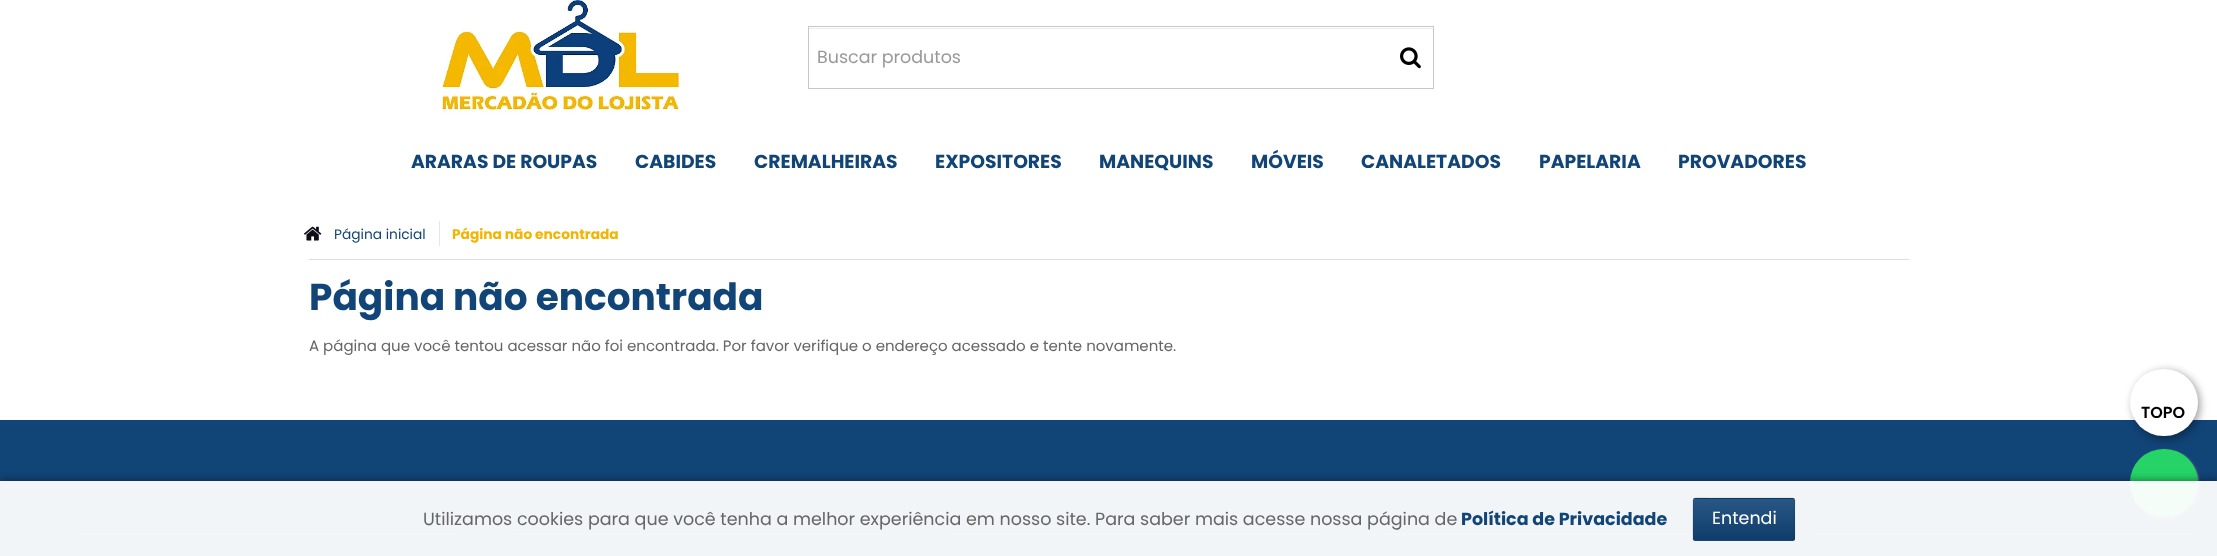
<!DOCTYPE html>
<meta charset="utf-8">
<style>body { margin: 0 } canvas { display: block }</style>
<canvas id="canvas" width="2217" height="556"></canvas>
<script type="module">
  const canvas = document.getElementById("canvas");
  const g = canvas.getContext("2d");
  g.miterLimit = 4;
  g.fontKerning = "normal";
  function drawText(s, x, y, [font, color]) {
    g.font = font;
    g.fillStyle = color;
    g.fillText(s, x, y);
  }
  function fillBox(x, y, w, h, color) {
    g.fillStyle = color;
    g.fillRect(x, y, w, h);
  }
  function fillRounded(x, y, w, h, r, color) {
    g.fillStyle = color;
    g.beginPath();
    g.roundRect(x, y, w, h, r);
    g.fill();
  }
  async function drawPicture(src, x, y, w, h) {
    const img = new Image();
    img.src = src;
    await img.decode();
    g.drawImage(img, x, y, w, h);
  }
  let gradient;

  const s1 = ["17.5px Poppins", "#999999"];
  const s2 = ["bold 18.75px Poppins", "#114477"];
  const s3 = ["13.75px Poppins", "#114477"];
  const s4 = ["bold 13.75px Poppins", "#F4B500"];
  const s5 = ["bold 37.5px Poppins", "#114477"];
  const s6 = ["15px Poppins", "#666666"];
  const s7 = ["600 16px Poppins", "#000000"];
  const s8 = ["17.5px Poppins", "#666666"];
  const s9 = ["bold 17.5px Poppins", "#114477"];
  const s10 = ["17.5px Poppins", "#FFFFFF"];

  fillBox(0, 0, 2217, 556, "#FFFFFF");
  await drawPicture("pic1.png", 442, 0, 237, 113);
  fillBox(809, 28, 624, 1, "#ECECEC");
  g.strokeStyle = "#C7C7C7";
  g.strokeRect(808.5, 26.5, 625, 62);
  drawText("Buscar produtos", 817, 63, s1);
  await drawPicture("pic2.png", 1400, 47, 21, 22);
  drawText("ARARAS DE ROUPAS", 411, 168, s2);
  drawText("CABIDES", 635, 168, s2);
  drawText("CREMALHEIRAS", 754, 168, s2);
  drawText("EXPOSITORES", 935, 168, s2);
  drawText("MANEQUINS", 1099, 168, s2);
  drawText("MÓVEIS", 1251, 168, s2);
  drawText("CANALETADOS", 1361, 168, s2);
  drawText("PAPELARIA", 1539, 168, s2);
  drawText("PROVADORES", 1678, 168, s2);
  fillBox(309, 259, 1600, 1, "#DEDEDE");
  await drawPicture("pic3.png", 304, 226, 18, 15);
  drawText("Página inicial", 334, 239, s3);
  fillBox(439, 221, 1, 25, "#E6E6E6");
  drawText("Página não encontrada", 452, 239, s4);
  drawText("Página não encontrada", 309, 310, s5);
  drawText("A página que você tentou acessar não foi encontrada. Por favor verifique o endereço acessado e tente novamente.", 309, 351, s6);
  fillBox(0, 420, 2217, 136, "#114477");
  fillBox(80, 534, 379, 1, "#4C4B4B");
  fillBox(514, 534, 379, 1, "#4C4B4B");
  fillBox(948, 534, 377, 1, "#4C4B4B");
  fillBox(1381, 534, 312, 1, "#4C4B4B");
  fillBox(1815, 534, 378, 1, "#4C4B4B");
  g.fillStyle = "#888888";
  g.filter = "blur(1px)";
  g.beginPath();
  g.roundRect(2131, 450, 68, 68, 34);
  g.fill();
  g.filter = "none";
  g.fillStyle = "rgba(0, 0, 0, 0.4)";
  g.filter = "blur(4px)";
  g.beginPath();
  g.roundRect(2133, 371, 67, 68, 33.5);
  g.fill();
  g.filter = "none";
  fillRounded(2130, 449, 68, 67, 33.5, "#25D366");
  fillRounded(2130, 369, 68, 67, 33.5, "#FFFFFF");
  drawText("TOPO", 2141, 418, s7);
  g.save();
  g.beginPath();
  g.moveTo(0, 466);
  g.lineTo(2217, 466);
  g.lineTo(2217, 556);
  g.lineTo(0, 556);
  g.closePath();
  g.moveTo(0, 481);
  g.lineTo(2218, 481);
  g.lineTo(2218, 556);
  g.lineTo(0, 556);
  g.closePath();
  g.clip("evenodd");
  g.fillStyle = "rgba(0, 0, 0, 0.5)";
  g.filter = "blur(4.5px)";
  g.beginPath();
  g.rect(0, 481, 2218, 75);
  g.fill();
  g.filter = "none";
  g.restore();
  fillBox(0, 481, 2217, 75, "rgba(255, 255, 255, 0.95)");
  drawText("Utilizamos cookies para que você tenha a melhor experiência em nosso site. Para saber mais acesse nossa página de", 423, 525, s8);
  drawText("Política de Privacidade", 1461, 525, s9);
  fillRounded(1693, 498, 102, 43, 2.5, "#114477");
  gradient = g.createLinearGradient(1744, 458, 1744, 499);
  gradient.addColorStop(0, "rgba(255, 255, 255, 0.1)");
  gradient.addColorStop(1, "rgba(0, 0, 0, 0.1)");
  g.fillStyle = gradient;
  g.fillRect(1693, 498, 102, 1);
  gradient = g.createLinearGradient(1744, 499, 1744, 540);
  gradient.addColorStop(0, "rgba(255, 255, 255, 0.1)");
  gradient.addColorStop(1, "rgba(0, 0, 0, 0.1)");
  g.fillStyle = gradient;
  g.fillRect(1693, 499, 102, 41);
  gradient = g.createLinearGradient(1744, 540, 1744, 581);
  gradient.addColorStop(0, "rgba(255, 255, 255, 0.1)");
  gradient.addColorStop(1, "rgba(0, 0, 0, 0.1)");
  g.fillStyle = gradient;
  g.fillRect(1693, 540, 102, 1);
  g.beginPath();
  g.moveTo(1794, 540);
  g.lineTo(1792.5, 540.5);
  g.lineTo(1695, 540.5);
  g.lineTo(1693.5, 540);
  g.strokeStyle = "rgba(0, 0, 0, 0.2)";
  g.lineWidth = 1.2;
  g.stroke();
  g.beginPath();
  g.moveTo(1693.5, 540);
  g.bezierCurveTo(1692, 538.5, 1693, 516.5, 1693, 513);
  g.bezierCurveTo(1693, 493.5, 1690, 498, 1711, 498);
  g.lineTo(1792.5, 498);
  g.bezierCurveTo(1796, 498, 1794.5, 506.5, 1794.5, 506.5);
  g.lineTo(1794.5, 519.5);
  g.bezierCurveTo(1794.5, 522.5, 1795.5, 538.5, 1794, 540);
  g.strokeStyle = "rgba(0, 0, 0, 0.1)";
  g.stroke();
  drawText("Entendi", 1712, 524, s10);
</script>
